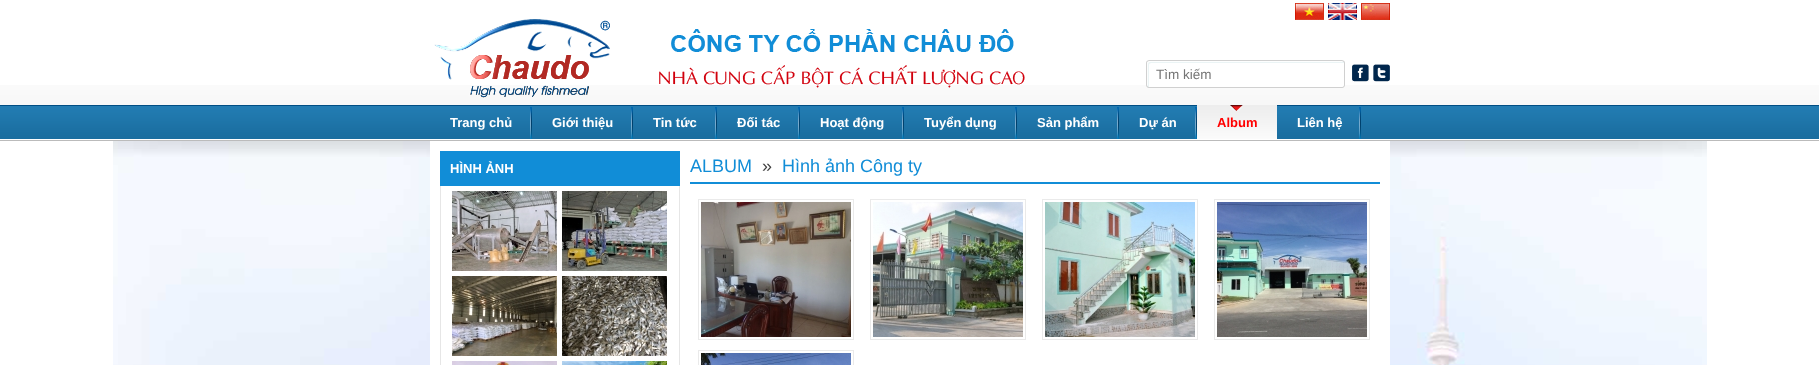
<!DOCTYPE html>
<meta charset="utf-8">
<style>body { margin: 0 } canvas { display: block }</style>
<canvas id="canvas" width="1819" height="365"></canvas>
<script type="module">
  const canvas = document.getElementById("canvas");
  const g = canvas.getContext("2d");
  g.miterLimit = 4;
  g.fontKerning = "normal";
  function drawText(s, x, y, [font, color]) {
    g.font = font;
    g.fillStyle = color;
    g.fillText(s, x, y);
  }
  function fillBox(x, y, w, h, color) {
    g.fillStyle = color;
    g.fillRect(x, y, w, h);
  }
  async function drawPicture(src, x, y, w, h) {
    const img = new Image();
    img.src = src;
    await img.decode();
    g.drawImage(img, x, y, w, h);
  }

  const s1 = ["13.5px Liberation Sans", "#757575"];
  const s2 = ["bold 13px Liberation Sans", "#FFFFFF"];
  const s3 = ["bold 13px Liberation Sans", "#FF0000"];
  const s4 = ["18px Liberation Sans", "#118DD7"];
  const s5 = ["18px Liberation Sans", "#404040"];

  fillBox(0, 0, 1819, 365, "#FFFFFF");
  await drawPicture("pic1.png", 0, 85, 1819, 56);
  await drawPicture("pic2.png", 1295, 3, 29, 17);
  await drawPicture("pic3.png", 1328, 3, 29, 17);
  await drawPicture("pic4.png", 1361, 3, 29, 17);
  await drawPicture("pic5.png", 434, 19, 591, 79);
  await drawPicture("pic6.png", 1146, 60, 199, 28);
  drawText("Tìm kiếm", 1156, 79, s1);
  await drawPicture("pic7.png", 1352, 64, 17, 18);
  await drawPicture("pic8.png", 1373, 64, 17, 18);
  await drawPicture("pic9.png", 530, 107, 2, 32);
  drawText("Trang chủ", 450, 127, s2);
  await drawPicture("pic9.png", 631, 107, 2, 32);
  drawText("Giới thiệu", 552, 127, s2);
  await drawPicture("pic9.png", 715, 107, 2, 32);
  drawText("Tin tức", 653, 127, s2);
  await drawPicture("pic9.png", 798, 107, 2, 32);
  drawText("Đối tác", 737, 127, s2);
  await drawPicture("pic9.png", 902, 107, 2, 32);
  drawText("Hoạt động", 820, 127, s2);
  await drawPicture("pic9.png", 1015, 107, 2, 32);
  drawText("Tuyển dụng", 924, 127, s2);
  await drawPicture("pic9.png", 1117, 107, 2, 32);
  drawText("Sản phẩm", 1037, 127, s2);
  await drawPicture("pic9.png", 1195, 107, 2, 32);
  drawText("Dự án", 1139, 127, s2);
  await drawPicture("pic11.png", 1197, 105, 80, 34);
  await drawPicture("pic10.png", 1230, 105, 13, 6);
  drawText("Album", 1217, 127, s3);
  await drawPicture("pic9.png", 1359, 107, 2, 32);
  drawText("Liên hệ", 1297, 127, s2);
  await drawPicture("pic12.png", 113, 141, 1594, 224);
  fillBox(430, 141, 960, 224, "#FFFFFF");
  fillBox(440, 151, 240, 35, "#118DD7");
  drawText("HÌNH ẢNH", 450, 173, s2);
  fillBox(679, 186, 1, 179, "#E6E6E6");
  fillBox(440, 186, 1, 179, "#E6E6E6");
  await drawPicture("pic13.png", 452, 191, 105, 80);
  await drawPicture("pic14.png", 562, 191, 105, 80);
  await drawPicture("pic15.png", 452, 276, 105, 80);
  await drawPicture("pic16.png", 562, 276, 105, 80);
  await drawPicture("pic17.png", 452, 361, 105, 4);
  await drawPicture("pic18.png", 562, 361, 105, 4);
  fillBox(690, 182, 690, 2, "#118DD7");
  drawText("ALBUM", 690, 172, s4);
  drawText("»", 762, 172, s5);
  drawText("Hình ảnh Công ty", 782, 172, s4);
  g.strokeStyle = "#EAEAEA";
  g.strokeRect(698.5, 199.5, 155, 140);
  await drawPicture("pic19.png", 701, 202, 150, 135);
  g.strokeRect(870.5, 199.5, 155, 140);
  await drawPicture("pic20.png", 873, 202, 150, 135);
  g.strokeRect(1042.5, 199.5, 155, 140);
  await drawPicture("pic21.png", 1045, 202, 150, 135);
  g.strokeRect(1214.5, 199.5, 155, 140);
  await drawPicture("pic22.png", 1217, 202, 150, 135);
  g.strokeRect(698.5, 350.5, 155, 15);
  await drawPicture("pic23.png", 701, 353, 150, 12);
</script>
